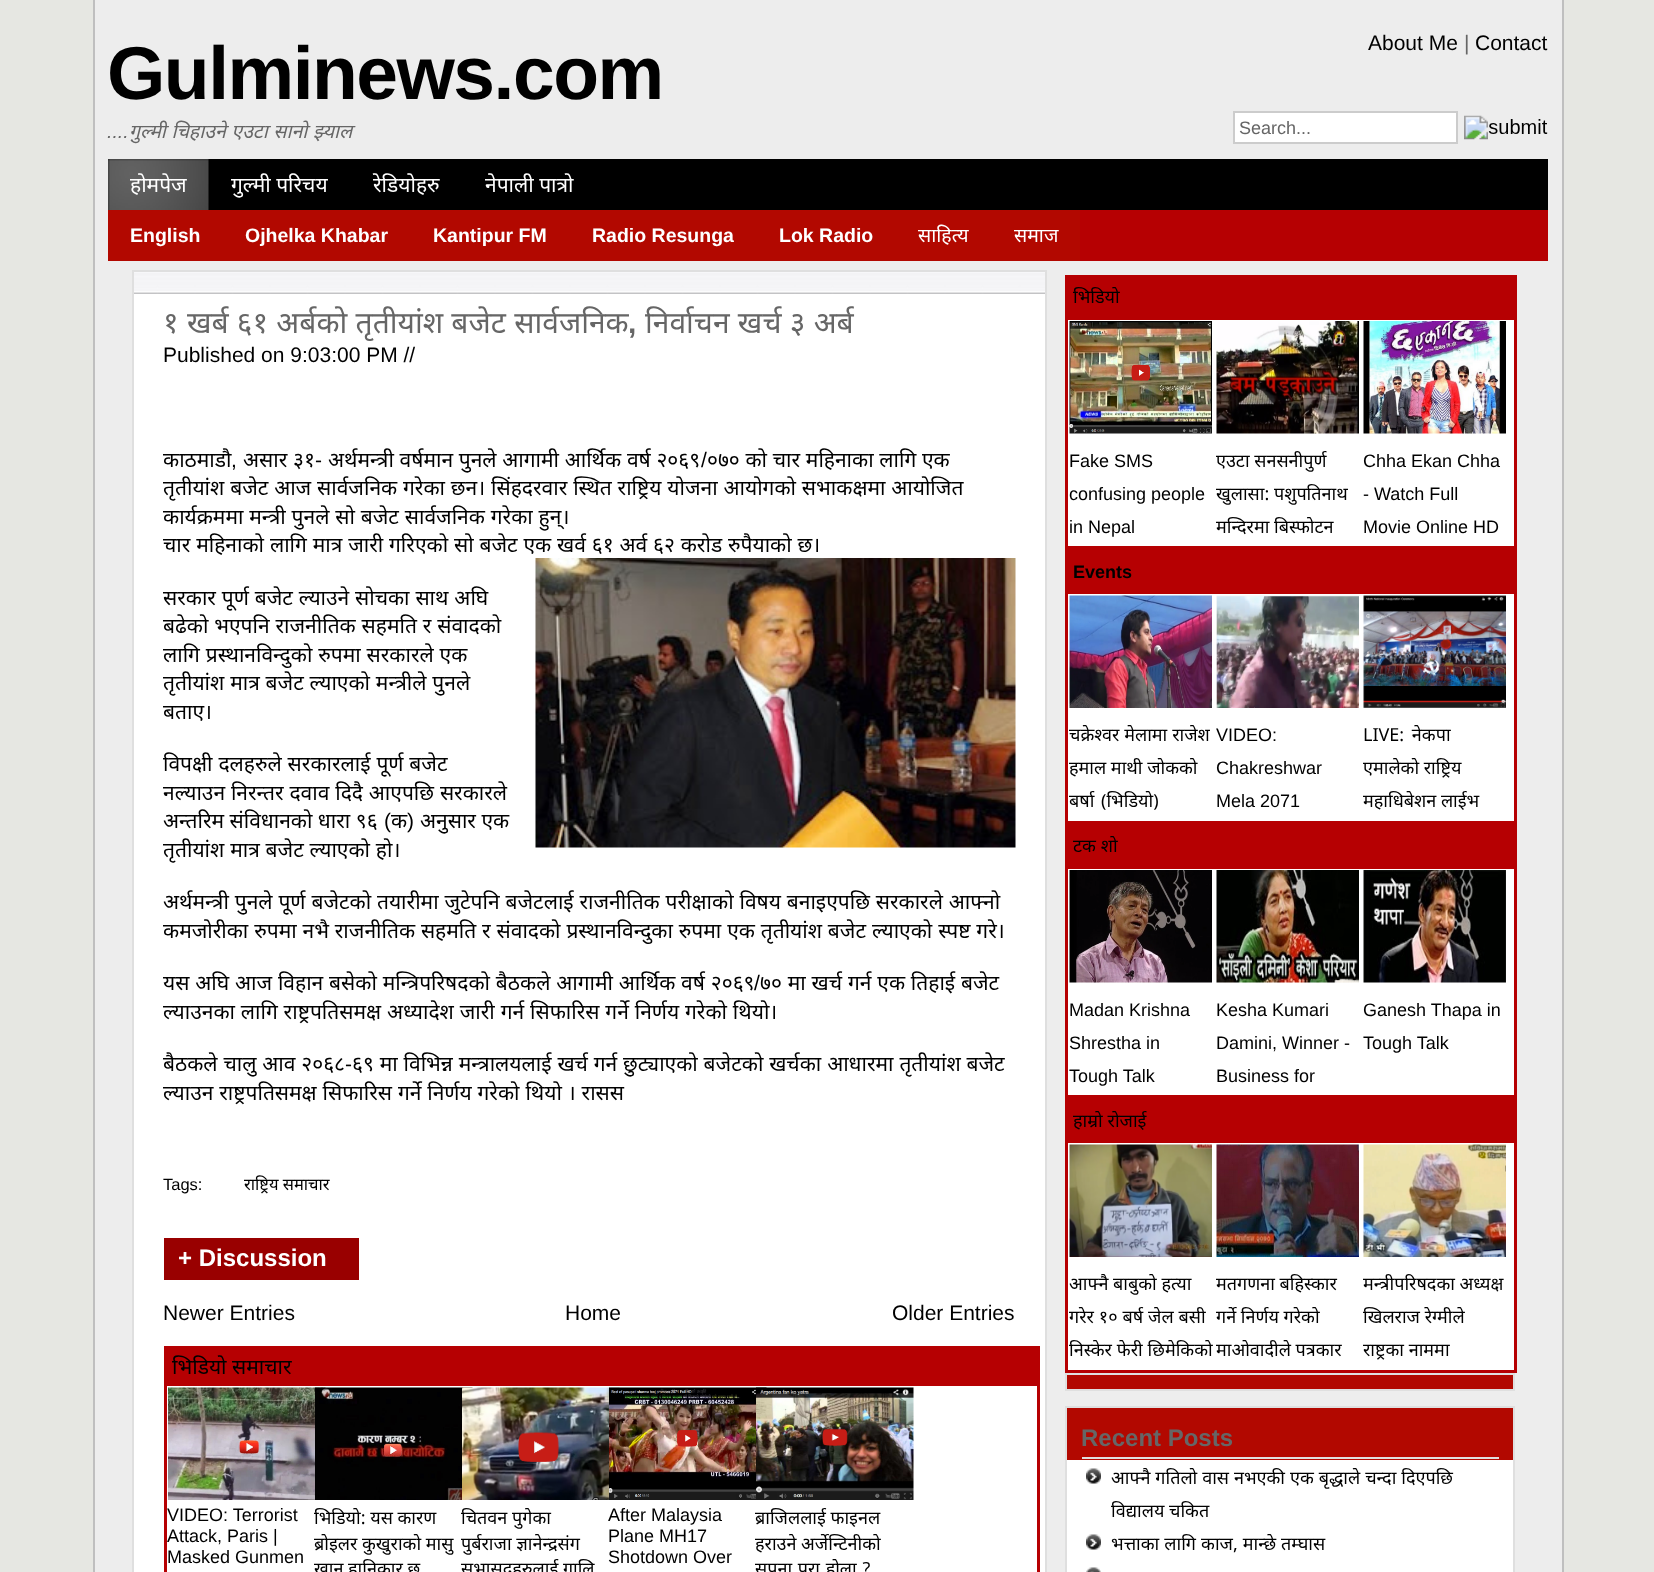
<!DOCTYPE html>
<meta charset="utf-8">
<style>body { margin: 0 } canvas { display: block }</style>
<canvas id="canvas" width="1654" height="1572"></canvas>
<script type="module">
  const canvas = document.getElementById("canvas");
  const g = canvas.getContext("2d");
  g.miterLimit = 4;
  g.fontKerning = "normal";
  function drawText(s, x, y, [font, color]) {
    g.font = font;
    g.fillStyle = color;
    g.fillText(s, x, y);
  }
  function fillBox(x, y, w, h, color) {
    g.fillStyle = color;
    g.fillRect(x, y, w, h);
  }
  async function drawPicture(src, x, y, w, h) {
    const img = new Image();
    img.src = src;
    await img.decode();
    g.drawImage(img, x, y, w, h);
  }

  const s1 = ["bold 75px Liberation Sans", "#000000"];
  const s2 = ["21px Liberation Sans", "#000000"];
  const s3 = ["21px Liberation Sans", "#666666"];
  const s4 = ["italic 19.5px Liberation Sans", "#666666"];
  const s5 = ["italic 19.5px Noto Sans", "#666666"];
  const s6 = ["18px Liberation Sans", "#666666"];
  const s7 = ["21px Noto Sans", "#FFFFFF"];
  const s8 = ["bold 19.5px Liberation Sans", "#FFFFFF"];
  const s9 = ["19.5px Noto Sans", "#FFFFFF"];
  const s10 = ["30px Noto Sans", "#666666"];
  const s11 = ["bold 30px Liberation Sans", "#666666"];
  const s12 = ["21px Noto Sans", "#000000"];
  const s13 = ["16.5px Liberation Sans", "#000000"];
  const s14 = ["16.5px Noto Sans", "#000000"];
  const s15 = ["bold 24px Liberation Sans", "#FFFFFF"];
  const s16 = ["18px Liberation Sans", "#000000"];
  const s17 = ["18px Noto Sans", "#000000"];
  const s18 = ["bold 18px Liberation Sans", "#000000"];
  const s19 = ["bold 24px Liberation Sans", "#666666"];

  fillBox(0, 0, 1654, 1572, "#E6E7E2");
  fillBox(95, 0, 1467, 1572, "#EDEDED");
  fillBox(1562, 0, 2, 1572, "#BFBFBF");
  fillBox(93, 0, 2, 1572, "#BFBFBF");
  g.letterSpacing = "-1.5px";
  drawText("Gulminews.com", 107, 99, s1);
  g.letterSpacing = "0px";
  drawText("About Me", 1368, 50, s2);
  drawText("|", 1464, 50, s3);
  drawText("Contact", 1475, 50, s2);
  drawText("....", 107, 138, s4);
  g.wordSpacing = "0.5px";
  drawText("गुल्मी चिहाउने एउटा सानो झ्याल", 129, 138, s5);
  g.fillStyle = "#FFFFFF";
  g.beginPath();
  g.rect(1234, 112, 223, 31);
  g.fill();
  g.strokeStyle = "#CCCCCC";
  g.lineWidth = 2;
  g.stroke();
  g.wordSpacing = "0px";
  drawText("Search...", 1239, 134, s6);
  await drawPicture("pic1.png", 1464, 115, 84, 25);
  fillBox(108, 159, 1440, 51, "#000000");
  await drawPicture("pic2.png", 108, 159, 101, 51);
  drawText("होमपेज", 130, 192, s7);
  drawText("गुल्मी परिचय", 231, 192, s7);
  drawText("रेडियोहरु", 373, 192, s7);
  drawText("नेपाली पात्रो", 485, 192, s7);
  fillBox(1080, 210, 468, 51, "#B60002");
  fillBox(108, 210, 972, 51, "#B20800");
  drawText("English", 130, 242, s8);
  drawText("Ojhelka Khabar", 245, 242, s8);
  drawText("Kantipur FM", 433, 242, s8);
  drawText("Radio Resunga", 592, 242, s8);
  drawText("Lok Radio", 779, 242, s8);
  drawText("साहित्य", 918, 242, s9);
  drawText("समाज", 1014, 242, s9);
  fillBox(134, 294, 911, 1278, "#FFFFFF");
  await drawPicture("pic3.png", 134, 272, 911, 22);
  g.strokeStyle = "#DFDFDF";
  g.strokeRect(133, 271, 913, 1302);
  g.wordSpacing = "0.5px";
  drawText("१ खर्ब ६१ अर्बको तृतीयांश बजेट सार्वजनिक", 163, 333, s10);
  g.wordSpacing = "0px";
  drawText(",", 628, 333, s11);
  g.wordSpacing = "0.5px";
  drawText("निर्वाचन खर्च ३ अर्ब", 645, 333, s10);
  g.wordSpacing = "0px";
  drawText("Published on 9:03:00 PM //", 163, 362, s2);
  drawText("काठमाडौ", 163, 467, s12);
  g.wordSpacing = "0.25px";
  drawText("असार ३१", 243, 467, s12);
  g.wordSpacing = "0px";
  drawText("-", 315, 467, s2);
  g.wordSpacing = "0.25px";
  drawText("अर्थमन्त्री वर्षमान पुनले आगामी आर्थिक वर्ष २०६९", 328, 467, s12);
  g.wordSpacing = "0px";
  drawText("/", 701, 467, s2);
  g.wordSpacing = "0.25px";
  drawText("०७० को चार महिनाका लागि एक", 707, 467, s12);
  g.wordSpacing = "0px";
  drawText(",", 231, 467, s2);
  g.wordSpacing = "0.4px";
  drawText("तृतीयांश बजेट आज सार्वजनिक गरेका छन। सिंहदरवार स्थित राष्ट्रिय योजना आयोगको सभाकक्षमा आयोजित", 163, 495, s12);
  drawText("कार्यक्रममा मन्त्री पुनले सो बजेट सार्वजनिक गरेका हुन्।", 163, 524, s12);
  drawText("चार महिनाको लागि मात्र जारी गरिएको सो बजेट एक खर्व ६१ अर्व ६२ करोड रुपैयाको छ।", 163, 552, s12);
  drawText("सरकार पूर्ण बजेट ल्याउने सोचका साथ अघि", 163, 605, s12);
  await drawPicture("pic4.png", 535, 558, 481, 290);
  drawText("बढेको भएपनि राजनीतिक सहमति र संवादको", 163, 633, s12);
  drawText("लागि प्रस्थानविन्दुको रुपमा सरकारले एक", 163, 662, s12);
  drawText("तृतीयांश मात्र बजेट ल्याएको मन्त्रीले पुनले", 163, 690, s12);
  g.wordSpacing = "0px";
  drawText("बताए।", 163, 719, s12);
  g.wordSpacing = "0.4px";
  drawText("विपक्षी दलहरुले सरकारलाई पूर्ण बजेट", 163, 771, s12);
  drawText("नल्याउन निरन्तर दवाव दिदै आएपछि सरकारले", 163, 800, s12);
  g.wordSpacing = "0px";
  drawText("अन्तरिम संविधानको धारा ९६", 163, 828, s12);
  drawText("(", 384, 828, s2);
  drawText("क", 391, 828, s12);
  drawText(")", 407, 828, s2);
  drawText("अनुसार एक", 420, 828, s12);
  g.wordSpacing = "0.4px";
  drawText("तृतीयांश मात्र बजेट ल्याएको हो।", 163, 857, s12);
  drawText("अर्थमन्त्री पुनले पूर्ण बजेटको तयारीमा जुटेपनि बजेटलाई राजनीतिक परीक्षाको विषय बनाइएपछि सरकारले आफ्नो", 163, 909, s12);
  drawText("कमजोरीका रुपमा नभै राजनीतिक सहमति र संवादको प्रस्थानविन्दुका रुपमा एक तृतीयांश बजेट ल्याएको स्पष्ट गरे।", 163, 938, s12);
  drawText("यस अघि आज विहान बसेको मन्त्रिपरिषदको बैठकले आगामी आर्थिक वर्ष २०६९", 163, 990, s12);
  g.wordSpacing = "0px";
  drawText("/", 754, 990, s2);
  g.wordSpacing = "0.4px";
  drawText("७० मा खर्च गर्न एक तिहाई बजेट", 760, 990, s12);
  drawText("ल्याउनका लागि राष्ट्रपतिसमक्ष अध्यादेश जारी गर्न सिफारिस गर्ने निर्णय गरेको थियो।", 163, 1019, s12);
  drawText("बैठकले चालु आव २०६८", 163, 1071, s12);
  g.wordSpacing = "0px";
  drawText("-", 345, 1071, s2);
  g.wordSpacing = "0.4px";
  drawText("६९ मा विभिन्न मन्त्रालयलाई खर्च गर्न छुट्याएको बजेटको खर्चका आधारमा तृतीयांश बजेट", 352, 1071, s12);
  drawText("ल्याउन राष्ट्रपतिसमक्ष सिफारिस गर्ने निर्णय गरेको थियो । रासस", 163, 1100, s12);
  g.wordSpacing = "0px";
  drawText("Tags:", 163, 1190, s13);
  drawText("राष्ट्रिय समाचार", 244, 1190, s14);
  fillBox(164, 1238, 195, 42, "#990000");
  drawText("+ Discussion", 178, 1266, s15);
  drawText("Newer Entries", 163, 1320, s2);
  drawText("Home", 565, 1320, s2);
  drawText("Older Entries", 892, 1320, s2);
  fillBox(1037, 1346, 3, 226, "#B60002");
  fillBox(164, 1346, 3, 226, "#B60002");
  fillBox(167, 1346, 870, 40, "#B60002");
  drawText("भिडियो समाचार", 172, 1374, s12);
  await drawPicture("pic5.png", 168, 1387, 158, 113);
  drawText("VIDEO: Terrorist", 167, 1521, s16);
  drawText("Attack, Paris |", 167, 1542, s16);
  drawText("Masked Gunmen", 167, 1563, s16);
  await drawPicture("pic6.png", 315, 1387, 158, 113);
  drawText("भिडियो: यस कारण", 314, 1524, s17);
  drawText("ब्रोइलर कुखुराको मासु", 314, 1550, s17);
  drawText("खानु हानिकार छ,", 314, 1575, s17);
  await drawPicture("pic7.png", 462, 1387, 158, 113);
  drawText("चितवन पुगेका", 461, 1524, s17);
  drawText("पुर्बराजा ज्ञानेन्द्रसंग", 461, 1550, s17);
  drawText("सभासदहरुलाई गालि", 461, 1575, s17);
  await drawPicture("pic8.png", 609, 1387, 158, 113);
  drawText("After Malaysia", 608, 1521, s16);
  drawText("Plane MH17", 608, 1542, s16);
  drawText("Shotdown Over", 608, 1563, s16);
  await drawPicture("pic9.png", 756, 1387, 158, 113);
  drawText("ब्राजिललाई फाइनल", 755, 1524, s17);
  drawText("हराउने अर्जेन्टिनीको", 755, 1550, s17);
  g.wordSpacing = "1px";
  drawText("सपना पुरा होला ?", 755, 1575, s17);
  fillBox(1068, 320, 446, 226, "#FFFFFF");
  fillBox(1514, 275, 3, 1098, "#B60002");
  fillBox(1065, 546, 452, 3, "#B60002");
  fillBox(1065, 275, 3, 274, "#B60002");
  fillBox(1068, 275, 446, 45, "#B60002");
  g.wordSpacing = "0px";
  drawText("भिडियो", 1073, 303, s17);
  await drawPicture("pic10.png", 1069, 321, 143, 113);
  drawText("Fake SMS", 1069, 467, s16);
  drawText("confusing people", 1069, 500, s16);
  drawText("in Nepal", 1069, 533, s16);
  await drawPicture("pic11.png", 1216, 321, 143, 113);
  drawText("एउटा सनसनीपुर्ण", 1216, 467, s17);
  drawText("खुलासा: पशुपतिनाथ", 1216, 500, s17);
  drawText("मन्दिरमा बिस्फोटन", 1216, 533, s17);
  await drawPicture("pic12.png", 1363, 321, 143, 113);
  drawText("Chha Ekan Chha", 1363, 467, s16);
  drawText("- Watch Full", 1363, 500, s16);
  drawText("Movie Online HD", 1363, 533, s16);
  fillBox(1068, 594, 446, 227, "#FFFFFF");
  fillBox(1065, 821, 452, 3, "#B60002");
  fillBox(1065, 549, 3, 275, "#B60002");
  fillBox(1068, 549, 446, 45, "#B60002");
  drawText("Events", 1073, 578, s18);
  await drawPicture("pic13.png", 1069, 595, 143, 113);
  g.wordSpacing = "0.25px";
  drawText("चक्रेश्वर मेलामा राजेश", 1069, 741, s17);
  g.wordSpacing = "0px";
  drawText("हमाल माथी जोकको", 1069, 774, s17);
  g.wordSpacing = "2px";
  drawText("बर्षा (भिडियो)", 1069, 807, s17);
  await drawPicture("pic14.png", 1216, 595, 143, 113);
  g.wordSpacing = "0px";
  drawText("VIDEO:", 1216, 741, s16);
  drawText("Chakreshwar", 1216, 774, s16);
  drawText("Mela 2071", 1216, 807, s16);
  await drawPicture("pic15.png", 1363, 595, 143, 113);
  g.wordSpacing = "3px";
  drawText("LIVE: नेकपा", 1363, 741, s17);
  g.wordSpacing = "0px";
  drawText("एमालेको राष्ट्रिय", 1363, 774, s17);
  drawText("महाधिबेशन लाईभ", 1363, 807, s17);
  fillBox(1068, 869, 446, 226, "#FFFFFF");
  fillBox(1065, 1095, 452, 3, "#B60002");
  fillBox(1065, 824, 3, 274, "#B60002");
  fillBox(1068, 824, 446, 45, "#B60002");
  g.wordSpacing = "0.25px";
  drawText("टक शो", 1073, 852, s17);
  await drawPicture("pic16.png", 1069, 870, 143, 113);
  g.wordSpacing = "0px";
  drawText("Madan Krishna", 1069, 1016, s16);
  drawText("Shrestha in", 1069, 1049, s16);
  drawText("Tough Talk", 1069, 1082, s16);
  await drawPicture("pic17.png", 1216, 870, 143, 113);
  drawText("Kesha Kumari", 1216, 1016, s16);
  drawText("Damini, Winner -", 1216, 1049, s16);
  drawText("Business for", 1216, 1082, s16);
  await drawPicture("pic18.png", 1363, 870, 143, 113);
  drawText("Ganesh Thapa in", 1363, 1016, s16);
  drawText("Tough Talk", 1363, 1049, s16);
  fillBox(1068, 1143, 446, 227, "#FFFFFF");
  fillBox(1065, 1370, 452, 3, "#B60002");
  fillBox(1065, 1098, 3, 275, "#B60002");
  fillBox(1068, 1098, 446, 45, "#B60002");
  g.wordSpacing = "0.25px";
  drawText("हाम्रो रोजाई", 1073, 1127, s17);
  await drawPicture("pic19.png", 1069, 1144, 143, 113);
  g.wordSpacing = "0px";
  drawText("आफ्नै बाबुको हत्या", 1069, 1290, s17);
  g.wordSpacing = "0.25px";
  drawText("गरेर १० बर्ष जेल बसी", 1069, 1323, s17);
  drawText("निस्केर फेरी छिमेकिको", 1069, 1356, s17);
  await drawPicture("pic20.png", 1216, 1144, 143, 113);
  g.wordSpacing = "0px";
  drawText("मतगणना बहिस्कार", 1216, 1290, s17);
  drawText("गर्ने निर्णय गरेको", 1216, 1323, s17);
  drawText("माओवादीले पत्रकार", 1216, 1356, s17);
  await drawPicture("pic21.png", 1363, 1144, 143, 113);
  drawText("मन्त्रीपरिषदका अध्यक्ष", 1363, 1290, s17);
  drawText("खिलराज रेग्मीले", 1363, 1323, s17);
  drawText("राष्ट्रका नाममा", 1363, 1356, s17);
  g.fillStyle = "#B20800";
  g.beginPath();
  g.rect(1066, 1374, 448, 16);
  g.fill();
  g.stroke();
  fillBox(1067, 1460, 446, 112, "#FFFFFF");
  fillBox(1067, 1408, 446, 52, "#B20800");
  g.strokeRect(1066, 1407, 448, 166);
  fillBox(1082, 1457, 417, 2, "#DFDFDF");
  drawText("Recent Posts", 1081, 1446, s19);
  await drawPicture("pic22.png", 1086, 1468, 15, 16);
  g.wordSpacing = "0.25px";
  drawText("आफ्नै गतिलो वास नभएकी एक बृद्धाले चन्दा दिएपछि", 1111, 1484, s17);
  g.wordSpacing = "0px";
  drawText("विद्यालय चकित", 1111, 1517, s17);
  await drawPicture("pic22.png", 1086, 1534, 15, 16);
  g.wordSpacing = "0.4px";
  drawText("भत्ताका लागि काज, मान्छे तम्घास", 1111, 1550, s17);
  await drawPicture("pic23.png", 1086, 1567, 15, 5);
</script>
